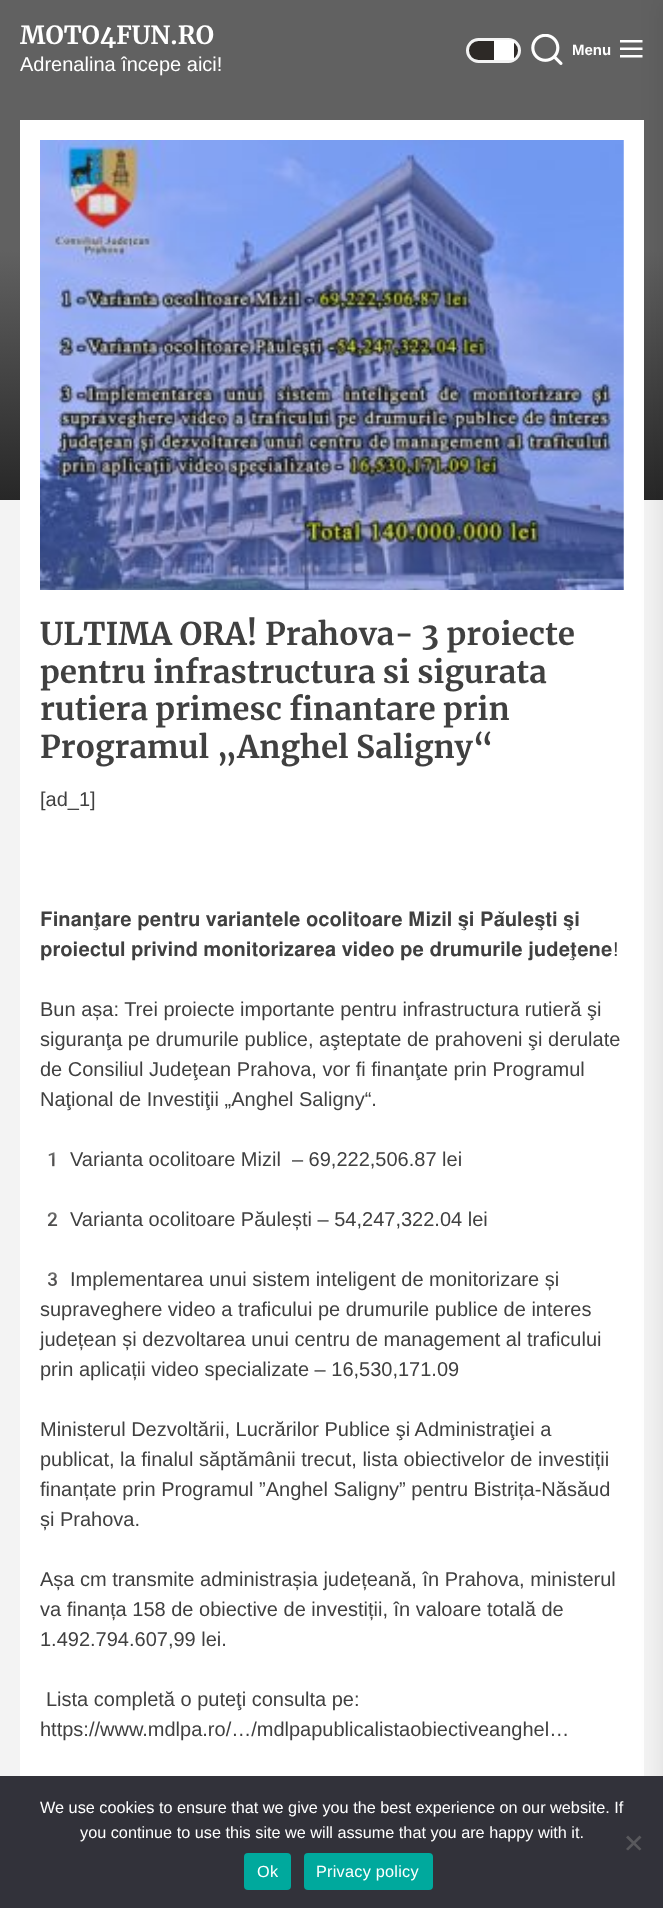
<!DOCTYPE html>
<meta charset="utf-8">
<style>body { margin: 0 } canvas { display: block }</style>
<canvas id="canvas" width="663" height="1908"></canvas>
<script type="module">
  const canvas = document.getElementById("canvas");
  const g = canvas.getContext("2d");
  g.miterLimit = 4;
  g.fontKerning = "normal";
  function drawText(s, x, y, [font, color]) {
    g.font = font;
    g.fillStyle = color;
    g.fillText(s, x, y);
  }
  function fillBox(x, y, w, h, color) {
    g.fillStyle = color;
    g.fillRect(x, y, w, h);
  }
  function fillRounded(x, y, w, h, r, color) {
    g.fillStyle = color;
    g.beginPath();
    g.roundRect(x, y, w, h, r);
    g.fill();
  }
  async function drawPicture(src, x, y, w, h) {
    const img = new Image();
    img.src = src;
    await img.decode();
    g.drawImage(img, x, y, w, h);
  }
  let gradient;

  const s1 = ["bold 25px Merriweather", "#FFFFFF"];
  const s2 = ["20px Liberation Sans", "#FFFFFF"];
  const s3 = ["bold 15px Liberation Sans", "#FFFFFF"];
  const s4 = ["bold 31.25px Merriweather", "#404040"];
  const s5 = ["20px Liberation Sans", "#404040"];
  const s6 = ["20px FreeSans", "#404040"];
  const s7 = ["20px Noto Color Emoji", "#404040"];
  const s8 = ["16.25px Liberation Sans", "#FFFFFF"];

  fillBox(0, 0, 663, 1908, "#F3F3F3");
  gradient = g.createLinearGradient(332, 0, 332, 500);
  gradient.addColorStop(0.5, "#616161");
  gradient.addColorStop(1, "#272727");
  g.fillStyle = gradient;
  g.fillRect(0, 0, 663, 500);
  drawText("MOTO4FUN.RO", 20, 44, s1);
  drawText("Adrenalina începe aici!", 20, 71, s2);
  g.fillStyle = "#2D2926";
  g.beginPath();
  g.roundRect(467.5, 39.5, 52, 22, 11);
  g.fill();
  g.strokeStyle = "#F3F3F3";
  g.lineWidth = 3;
  g.stroke();
  fillBox(494, 40, 20, 20, "#FFFFFF");
  await drawPicture("pic1.png", 531, 34, 32, 31);
  drawText("Menu", 572, 55, s3);
  await drawPicture("pic2.png", 620, 40, 23, 18);
  fillBox(20, 120, 624, 1656, "#FFFFFF");
  g.fillStyle = "rgba(0, 0, 0, 0.1)";
  g.filter = "blur(12.5px)";
  g.beginPath();
  g.rect(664, 0, 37, 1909);
  g.fill();
  g.filter = "none";
  await drawPicture("pic3.png", 40, 140, 584, 450);
  drawText("ULTIMA ORA! Prahova- 3 proiecte", 40, 645, s4);
  drawText("pentru infrastructura si sigurata", 40, 683, s4);
  drawText("rutiera primesc finantare prin", 40, 720, s4);
  drawText("Programul „Anghel Saligny“", 40, 758, s4);
  drawText("[ad_1]", 40, 806, s5);
  g.wordSpacing = "0.5px";
  drawText("𝐅𝐢𝐧𝐚𝐧𝐭̧𝐚𝐫𝐞 𝐩𝐞𝐧𝐭𝐫𝐮 𝐯𝐚𝐫𝐢𝐚𝐧𝐭𝐞𝐥𝐞 𝐨𝐜𝐨𝐥𝐢𝐭𝐨𝐚𝐫𝐞 𝐌𝐢𝐳𝐢𝐥 𝐬̧𝐢 𝐏𝐚̆𝐮𝐥𝐞𝐬̧𝐭𝐢 𝐬̧𝐢", 40, 926, s6);
  drawText("𝐩𝐫𝐨𝐢𝐞𝐜𝐭𝐮𝐥 𝐩𝐫𝐢𝐯𝐢𝐧𝐝 𝐦𝐨𝐧𝐢𝐭𝐨𝐫𝐢𝐳𝐚𝐫𝐞𝐚 𝐯𝐢𝐝𝐞𝐨 𝐩𝐞 𝐝𝐫𝐮𝐦𝐮𝐫𝐢𝐥𝐞 𝐣𝐮𝐝𝐞𝐭̧𝐞𝐧𝐞", 40, 956, s6);
  g.wordSpacing = "0px";
  drawText("!", 613, 956, s5);
  drawText("Bun așa: Trei proiecte importante pentru infrastructura rutieră şi", 40, 1016, s5);
  drawText("siguranţa pe drumurile publice, aşteptate de prahoveni şi derulate", 40, 1046, s5);
  drawText("de Consiliul Judeţean Prahova, vor fi finanţate prin Programul", 40, 1076, s5);
  drawText("Naţional de Investiţii „Anghel Saligny“.", 40, 1106, s5);
  drawText("1️", 40, 1166, s7);
  drawText("Varianta ocolitoare Mizil  – 69,222,506.87 lei", 70, 1166, s5);
  drawText("2️", 40, 1226, s7);
  drawText("Varianta ocolitoare Păulești – 54,247,322.04 lei", 70, 1226, s5);
  drawText("3️", 40, 1286, s7);
  drawText("Implementarea unui sistem inteligent de monitorizare și", 70, 1286, s5);
  drawText("supraveghere video a traficului pe drumurile publice de interes", 40, 1316, s5);
  drawText("județean și dezvoltarea unui centru de management al traficului", 40, 1346, s5);
  drawText("prin aplicații video specializate – 16,530,171.09", 40, 1376, s5);
  drawText("Ministerul Dezvoltării, Lucrărilor Publice şi Administraţiei a", 40, 1436, s5);
  drawText("publicat, la finalul săptămânii trecut, lista obiectivelor de investiții", 40, 1466, s5);
  drawText("finanțate prin Programul ”Anghel Saligny” pentru Bistrița-Năsăud", 40, 1496, s5);
  drawText("și Prahova.", 40, 1526, s5);
  drawText("Așa cm transmite administrașia județeană, în Prahova, ministerul", 40, 1586, s5);
  drawText("va finanța 158 de obiective de investiții, în valoare totală de", 40, 1616, s5);
  drawText("1.492.794.607,99 lei.", 40, 1646, s5);
  drawText("Lista completă o puteţi consulta pe:", 46, 1706, s5);
  drawText("https://www.mdlpa.ro/…/mdlpapublicalistaobiectiveanghel…", 40, 1736, s5);
  fillBox(0, 1776, 663, 132, "#32323A");
  drawText("We use cookies to ensure that we give you the best experience on our website. If", 40, 1813, s8);
  drawText("you continue to use this site we will assume that you are happy with it.", 80, 1838, s8);
  g.fillStyle = "#59595D";
  g.beginPath();
  g.moveTo(639.5, 1835.5);
  g.lineTo(641.5, 1837.5);
  g.lineTo(628, 1850.5);
  g.lineTo(626, 1849);
  g.closePath();
  g.fill();
  g.beginPath();
  g.moveTo(626, 1837.5);
  g.lineTo(628, 1835.5);
  g.lineTo(641.5, 1849);
  g.lineTo(639.5, 1850.5);
  g.closePath();
  g.fill();
  fillRounded(244, 1853, 47, 37, 4, "#00A99D");
  g.letterSpacing = "0.25px";
  drawText("Ok", 257, 1877, s8);
  fillRounded(304, 1853, 129, 37, 4, "#00A99D");
  drawText("Privacy policy", 316, 1877, s8);
</script>
